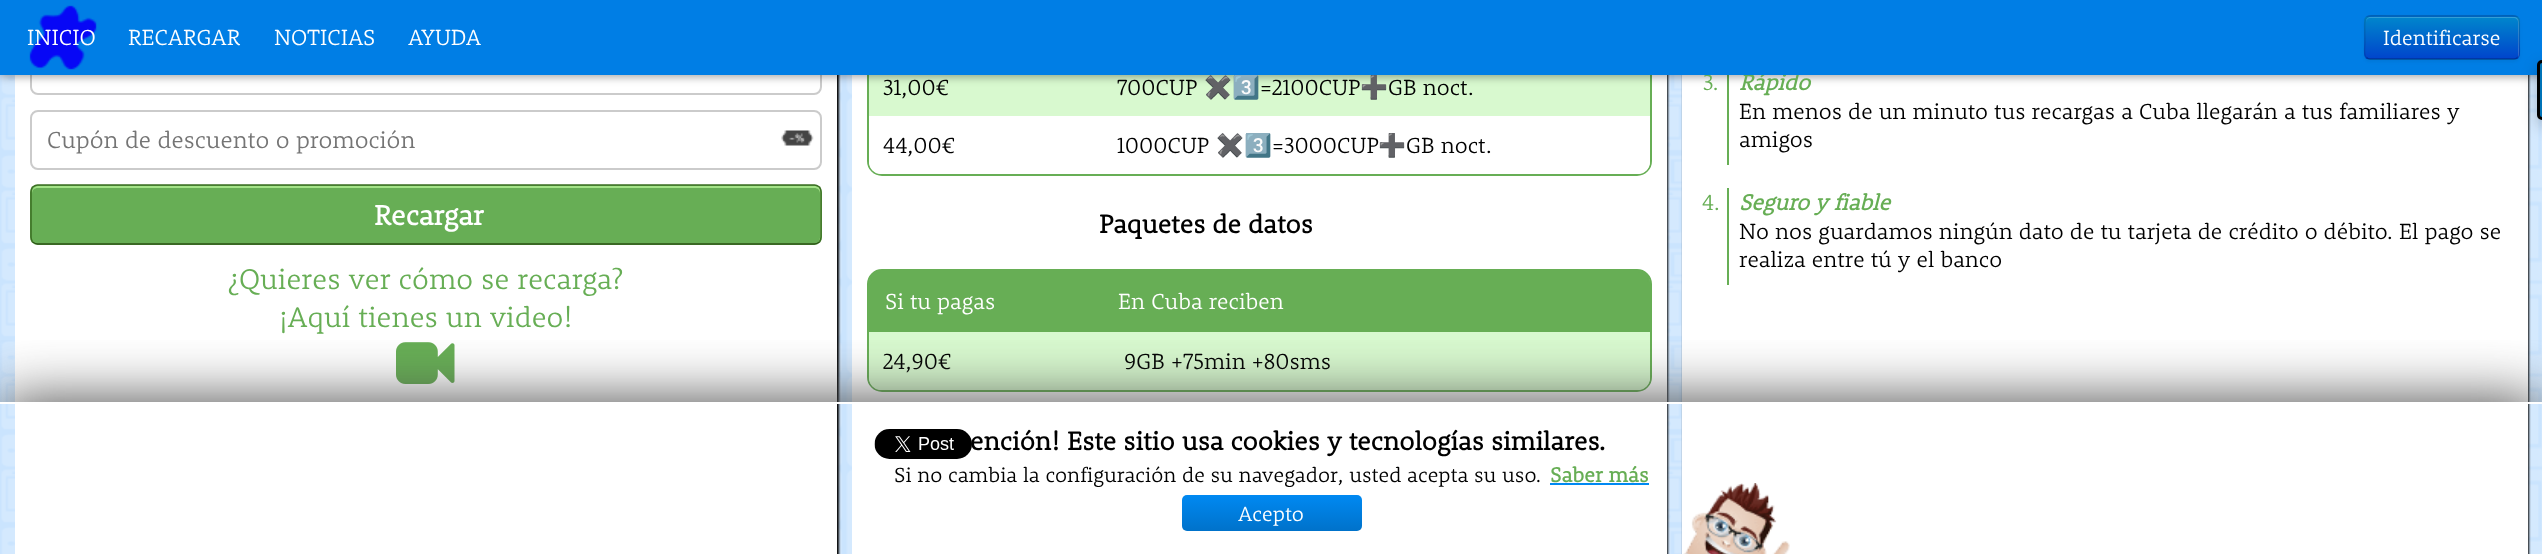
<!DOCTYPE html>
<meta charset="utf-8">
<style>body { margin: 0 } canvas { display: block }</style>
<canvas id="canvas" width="2542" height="554"></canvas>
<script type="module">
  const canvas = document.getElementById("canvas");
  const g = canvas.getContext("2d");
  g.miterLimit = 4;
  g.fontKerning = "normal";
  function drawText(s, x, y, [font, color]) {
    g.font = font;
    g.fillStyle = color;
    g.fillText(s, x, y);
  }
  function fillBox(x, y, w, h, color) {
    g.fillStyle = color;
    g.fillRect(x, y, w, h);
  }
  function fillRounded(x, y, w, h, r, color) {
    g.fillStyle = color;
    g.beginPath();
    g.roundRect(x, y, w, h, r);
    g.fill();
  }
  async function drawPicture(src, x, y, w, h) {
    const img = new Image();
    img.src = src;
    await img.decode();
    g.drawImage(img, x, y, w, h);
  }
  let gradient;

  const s1 = ["22.5px Noto Color Emoji", "#000000"];
  const s2 = ["300 22.5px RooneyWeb", "#67AE55"];
  const s3 = ["italic bold 22.5px RooneyWeb", "#67AE55"];
  const s4 = ["300 22.5px RooneyWeb", "#FFFFFF"];
  const s5 = ["300 21px RooneyWeb", "#FFFFFF"];
  const s6 = ["300 24px RooneyWeb", "#757575"];
  const s7 = ["bold 28.5px RooneyWeb", "#FFFFFF"];
  const s8 = ["300 29.25px RooneyWeb", "#67AE55"];
  const s9 = ["300 22.5px RooneyWeb", "#000000"];
  const s10 = ["bold 26.3px RooneyWeb", "#000000"];
  const s11 = ["300 21px RooneyWeb", "#000000"];
  const s12 = ["bold 21px RooneyWeb", "#67AE55"];

  fillBox(0, 0, 2542, 554, "#CAE4FE");
  await drawPicture("pic1.png", 1, 75, 2541, 479);
  g.fillStyle = "#000000";
  g.filter = "blur(1px)";
  g.beginPath();
  g.roundRect(17, -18, 822, 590, 15);
  g.fill();
  g.filter = "none";
  fillBox(15, 75, 822, 479, "#FFFFFF");
  g.beginPath();
  g.roundRect(31, 36, 790, 58, 7);
  g.strokeStyle = "#CBCBCB";
  g.lineWidth = 2;
  g.stroke();
  g.fillStyle = "#000000";
  g.filter = "blur(1px)";
  g.beginPath();
  g.roundRect(854, -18, 814, 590, 15);
  g.fill();
  g.filter = "none";
  fillBox(852, 75, 815, 479, "#FFFFFF");
  g.beginPath();
  g.roundRect(868, -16, 783, 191, 14);
  g.strokeStyle = "#67AE55";
  g.stroke();
  fillBox(869, 75, 781, 41, "#D8F9CF");
  g.fillStyle = "#000000";
  g.filter = "blur(1px)";
  g.beginPath();
  g.roundRect(1683, -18, 846, 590, 15);
  g.fill();
  g.filter = "none";
  fillBox(1682, 75, 846, 479, "#FFFFFF");
  fillBox(1727, 68, 2, 97, "#67AE55");
  g.fillStyle = "rgba(0, 0, 0, 0.35)";
  g.filter = "blur(4px)";
  g.beginPath();
  g.rect(0, 2, 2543, 75);
  g.fill();
  g.filter = "none";
  drawText("✖️3️⃣", 1204, 95, s1);
  drawText("➕", 1360, 95, s1);
  drawText("3.", 1703, 90, s2);
  drawText("Rápido", 1739, 90, s3);
  fillBox(0, 0, 2542, 75, "#007EE5");
  await drawPicture("pic2.png", 29, 5, 68, 65);
  drawText("INICIO", 27, 45, s4);
  drawText("RECARGAR", 128, 45, s4);
  drawText("NOTICIAS", 274, 45, s4);
  drawText("AYUDA", 408, 45, s4);
  g.fillStyle = "rgba(0, 0, 0, 0.05)";
  g.filter = "blur(1.5px)";
  g.beginPath();
  g.roundRect(2364, 17, 156, 45, 6);
  g.fill();
  g.filter = "none";
  fillRounded(2364, 15, 156, 45, 6, "#006DCC");
  g.save();
  g.beginPath();
  g.roundRect(2364, 15, 156, 45, 6);
  g.clip();
  gradient = g.createLinearGradient(2442, 16, 2442, 59);
  gradient.addColorStop(0, "#0088CC");
  gradient.addColorStop(1, "#0044CC");
  g.fillStyle = gradient;
  g.fillRect(2364, 17, 156, 42);
  g.restore();
  g.fillStyle = "rgba(255, 255, 255, 0.2)";
  g.beginPath();
  g.moveTo(2370, 18);
  g.lineTo(2514, 18);
  g.bezierCurveTo(2516, 18, 2518, 20, 2518, 22);
  g.lineTo(2518, 57);
  g.bezierCurveTo(2519, 56, 2519, 55, 2519, 54);
  g.lineTo(2519, 22);
  g.bezierCurveTo(2519, 19, 2517, 17, 2514, 17);
  g.lineTo(2371, 17);
  g.bezierCurveTo(2368, 17, 2366, 19, 2366, 22);
  g.bezierCurveTo(2366, 20, 2368, 18, 2370, 18);
  g.closePath();
  g.fill();
  g.beginPath();
  g.moveTo(2517.5, 57.5);
  g.bezierCurveTo(2516.5, 58.5, 2515.5, 59, 2514, 59);
  g.lineTo(2370, 59);
  g.bezierCurveTo(2368.5, 59, 2367.5, 58.5, 2366.5, 57.5);
  g.strokeStyle = "rgba(0, 0, 0, 0.25)";
  g.lineWidth = 1.5;
  g.stroke();
  g.beginPath();
  g.moveTo(2366.5, 57.5);
  g.bezierCurveTo(2363, 54.5, 2365, 46.5, 2365, 43);
  g.bezierCurveTo(2365, 10.5, 2359.5, 16, 2394, 16);
  g.lineTo(2490, 16);
  g.bezierCurveTo(2524.5, 16, 2519, 10.5, 2519, 43);
  g.bezierCurveTo(2519, 46.5, 2521, 54.5, 2517.5, 57.5);
  g.strokeStyle = "rgba(0, 0, 0, 0.1)";
  g.stroke();
  drawText("Identificarse", 2383, 45, s5);
  await drawPicture("pic3.png", 781, 130, 33, 16);
  g.beginPath();
  g.roundRect(31, 111, 790, 58, 7);
  g.strokeStyle = "#CBCBCB";
  g.lineWidth = 2;
  g.stroke();
  drawText("Cupón de descuento o promoción", 47, 148, s6);
  fillRounded(30, 185, 792, 60, 8, "#67AE55");
  g.fillStyle = "#A4E388";
  g.beginPath();
  g.moveTo(38, 188);
  g.lineTo(814, 188);
  g.bezierCurveTo(818, 188, 820, 190, 820, 194);
  g.lineTo(820, 238);
  g.lineTo(819, 241);
  g.bezierCurveTo(820, 240, 821, 239, 821, 237);
  g.lineTo(821, 192);
  g.bezierCurveTo(821, 189, 818, 186, 815, 186);
  g.lineTo(38, 186);
  g.bezierCurveTo(35, 186, 32, 189, 32, 192);
  g.lineTo(32, 194);
  g.bezierCurveTo(32, 190, 34, 188, 38, 188);
  g.closePath();
  g.fill();
  g.beginPath();
  g.moveTo(819.5, 242);
  g.bezierCurveTo(818, 243, 816.5, 244, 814.5, 244);
  g.lineTo(37.5, 244);
  g.bezierCurveTo(35.5, 244, 34, 243, 32.5, 242);
  g.strokeStyle = "#2C5115";
  g.lineWidth = 1.5;
  g.stroke();
  g.beginPath();
  g.moveTo(32.5, 242);
  g.bezierCurveTo(31.5, 240.5, 31, 239, 31, 237);
  g.lineTo(31, 192);
  g.bezierCurveTo(31, 190, 31.5, 188.5, 32.5, 187);
  g.bezierCurveTo(34, 186, 35.5, 185, 37.5, 185);
  g.lineTo(814.5, 185);
  g.bezierCurveTo(816.5, 185, 818, 186, 819.5, 187);
  g.bezierCurveTo(820.5, 188.5, 821, 190, 821, 192);
  g.lineTo(821, 237);
  g.bezierCurveTo(821, 239, 820.5, 240.5, 819.5, 242);
  g.strokeStyle = "#3B6E22";
  g.stroke();
  drawText("Recargar", 374, 225, s7);
  drawText("¿Quieres ver cómo se recarga?", 228, 289, s8);
  drawText("¡Aquí tienes un video!", 279, 327, s8);
  await drawPicture("pic4.png", 396, 342, 59, 42);
  drawText("31,00€", 883, 95, s9);
  drawText("700CUP", 1117, 95, s9);
  drawText("=2100CUP", 1260, 95, s9);
  drawText("GB noct.", 1388, 95, s9);
  g.fillStyle = "#FFFFFF";
  g.beginPath();
  g.roundRect(869, 116, 781, 58, [0, 0, 12, 12]);
  g.fill();
  drawText("44,00€", 883, 153, s9);
  drawText("1000CUP", 1117, 153, s9);
  drawText("✖️3️⃣", 1216, 153, s1);
  drawText("=3000CUP", 1272, 153, s9);
  drawText("➕", 1378, 153, s1);
  drawText("GB noct.", 1406, 153, s9);
  drawText("Paquetes de datos", 1099, 233, s10);
  g.beginPath();
  g.roundRect(868, 270, 783, 121, 14);
  g.strokeStyle = "#67AE55";
  g.lineWidth = 2;
  g.stroke();
  g.fillStyle = "#67AE55";
  g.beginPath();
  g.roundRect(870, 271, 779, 60, [11, 11, 0, 0]);
  g.fill();
  g.stroke();
  drawText("Si tu pagas", 885, 309, s4);
  drawText("En Cuba reciben", 1118, 309, s4);
  g.fillStyle = "#D8F9CF";
  g.beginPath();
  g.roundRect(869, 332, 781, 58, [0, 0, 12, 12]);
  g.fill();
  drawText("24,90€", 883, 369, s9);
  drawText("9GB +75min +80sms", 1124, 369, s9);
  await drawPicture("pic5.png", 874, 429, 98, 30);
  await drawPicture("pic6.png", 1683, 483, 107, 71);
  drawText("En menos de un minuto tus recargas a Cuba llegarán a tus familiares y", 1739, 119, s9);
  drawText("amigos", 1739, 147, s9);
  drawText("4.", 1702, 210, s2);
  fillBox(1727, 188, 2, 97, "#67AE55");
  drawText("Seguro y fiable", 1739, 210, s3);
  drawText("No nos guardamos ningún dato de tu tarjeta de crédito o débito. El pago se", 1739, 239, s9);
  drawText("realiza entre tú y el banco", 1739, 267, s9);
  g.save();
  g.beginPath();
  g.rect(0, 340, 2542, 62);
  g.clip();
  g.fillStyle = "#444444";
  g.filter = "blur(30px)";
  g.beginPath();
  g.rect(0, 402, 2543, 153);
  g.fill();
  g.filter = "none";
  g.restore();
  fillBox(0, 402, 2542, 2, "#FFFFFF");
  drawText("ención! Este sitio usa cookies y tecnologías similares.", 970, 450, s10);
  drawText("Si no cambia la configuración de su navegador, usted acepta su uso.", 894, 482, s11);
  drawText("Saber más", 1550, 482, s12);
  fillBox(1550, 483, 99, 2, "#0089F2");
  gradient = g.createLinearGradient(1272, 495, 1272, 531);
  gradient.addColorStop(0, "#0089F2");
  gradient.addColorStop(1, "#0072CA");
  g.fillStyle = gradient;
  g.beginPath();
  g.roundRect(1182, 495, 180, 36, 5);
  g.fill();
  drawText("Acepto", 1238, 521, s5);
  g.fillStyle = "rgba(0, 0, 0, 0.2)";
  g.filter = "blur(7.5px)";
  g.beginPath();
  g.roundRect(2537, 66, 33, 60, 5);
  g.fill();
  g.filter = "none";
  g.fillStyle = "#0073B7";
  g.beginPath();
  g.moveTo(2542, 61.5);
  g.lineTo(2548.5, 61.5);
  g.lineTo(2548.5, 118.5);
  g.lineTo(2542, 118.5);
  g.bezierCurveTo(2540, 118.5, 2538.5, 117, 2538.5, 115);
  g.lineTo(2538.5, 65);
  g.bezierCurveTo(2538.5, 63, 2540, 61.5, 2542, 61.5);
  g.closePath();
  g.fill();
  g.strokeStyle = "#000000";
  g.lineWidth = 3;
  g.stroke();
</script>
